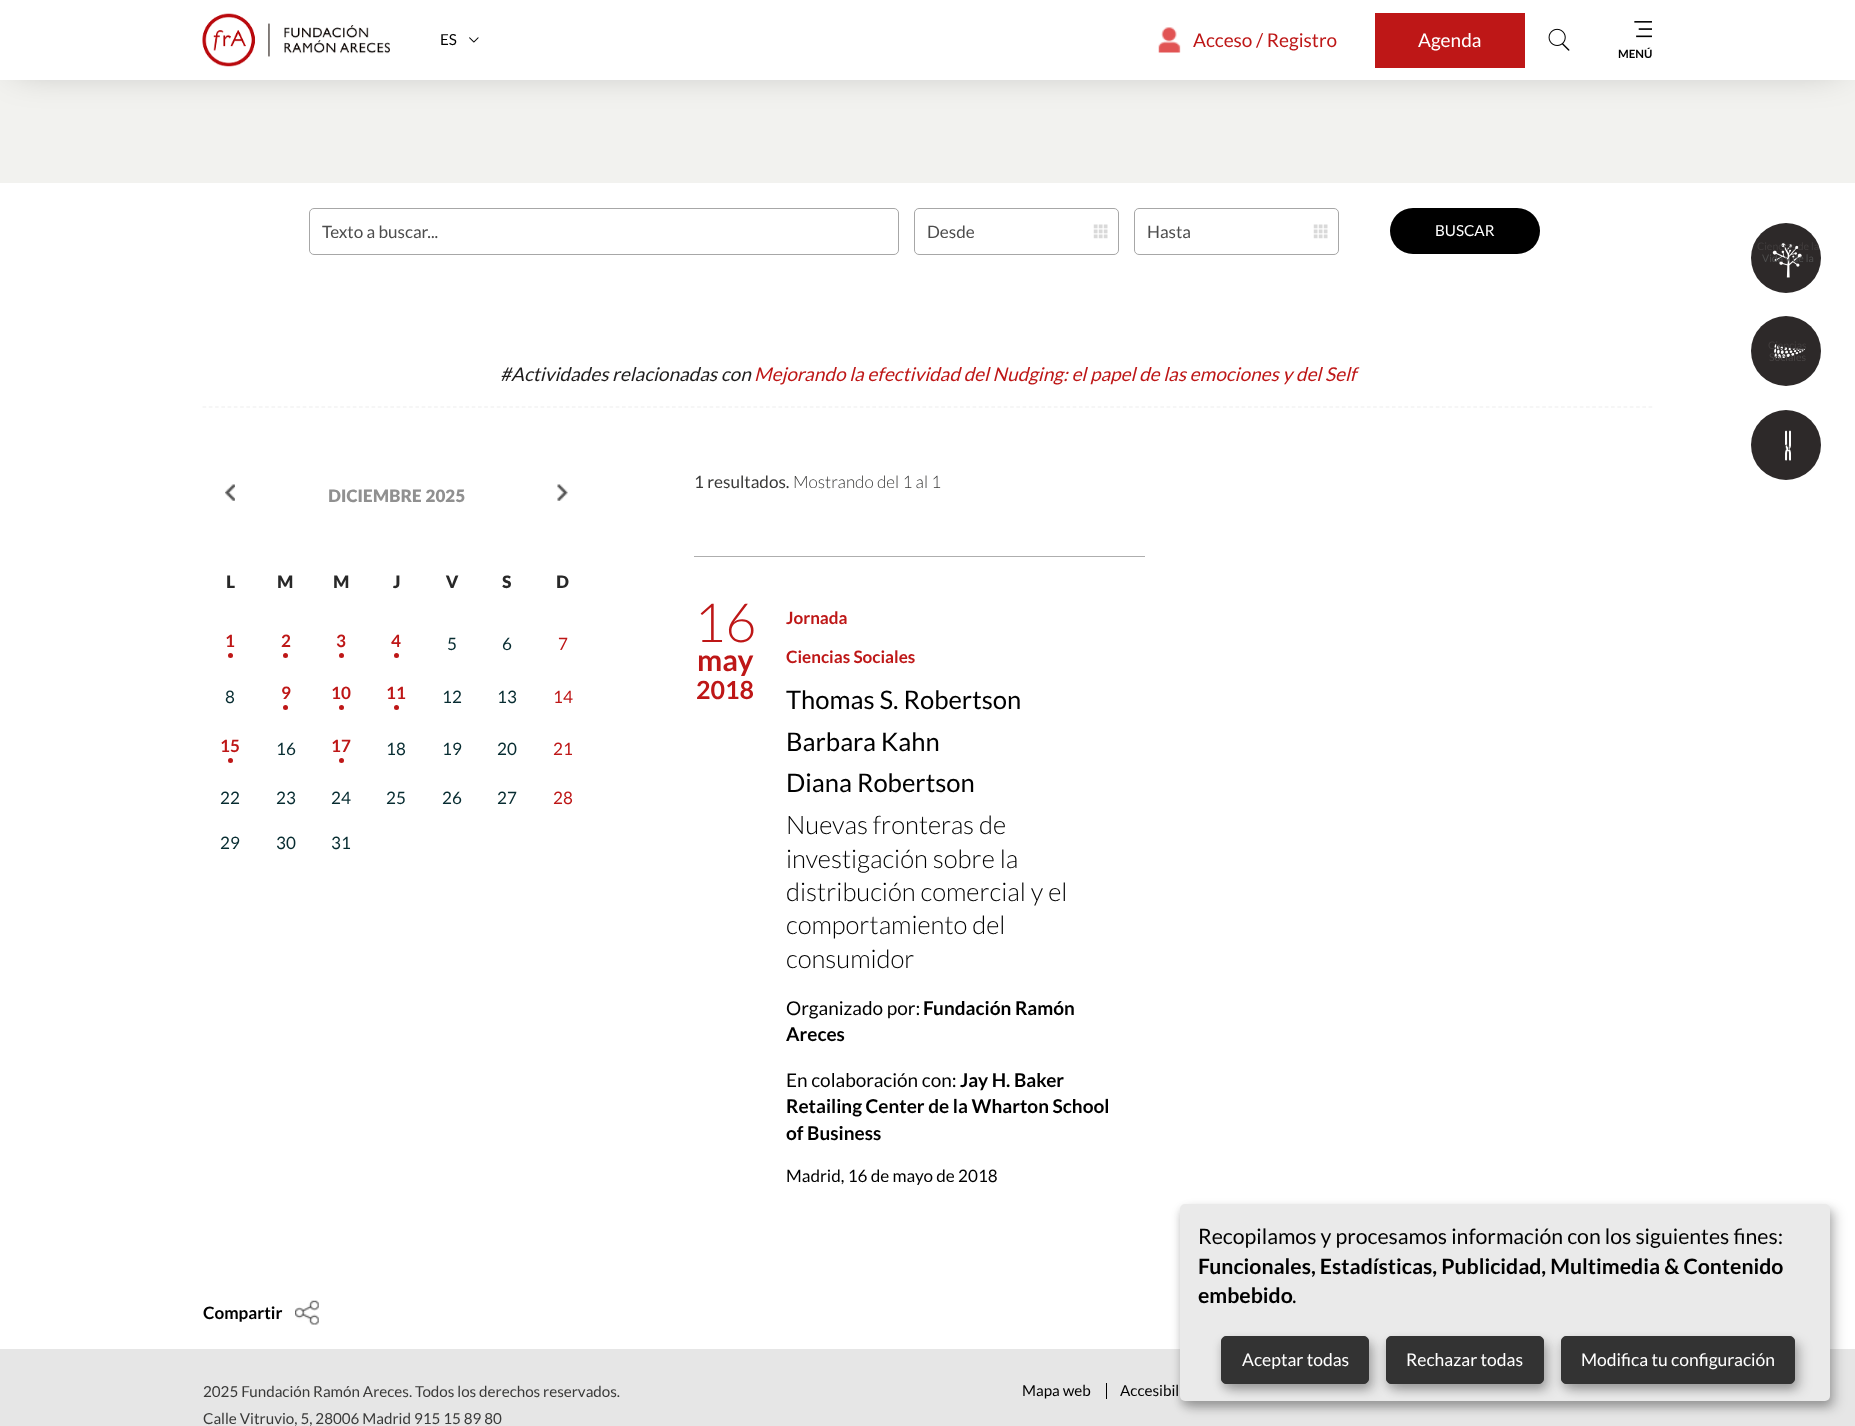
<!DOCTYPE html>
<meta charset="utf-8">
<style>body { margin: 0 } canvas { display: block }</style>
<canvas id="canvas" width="1855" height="1426"></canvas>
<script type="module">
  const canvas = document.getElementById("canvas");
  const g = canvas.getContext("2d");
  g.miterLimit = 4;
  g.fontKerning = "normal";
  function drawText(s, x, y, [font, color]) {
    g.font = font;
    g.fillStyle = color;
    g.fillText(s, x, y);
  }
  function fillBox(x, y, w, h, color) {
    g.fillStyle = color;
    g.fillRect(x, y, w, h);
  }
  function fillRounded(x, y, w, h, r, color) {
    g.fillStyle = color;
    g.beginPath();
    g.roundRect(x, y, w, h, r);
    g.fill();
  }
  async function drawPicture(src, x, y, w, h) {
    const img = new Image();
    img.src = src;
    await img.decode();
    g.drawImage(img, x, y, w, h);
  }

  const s1 = ["15.2px Lato", "#000000"];
  const s2 = ["19px Lato", "#BE1717"];
  const s3 = ["19px Lato", "#FFFFFF"];
  const s4 = ["bold 11.5px Lato", "#000000"];
  const s5 = ["17.1px Lato", "#4D4D4D"];
  const s6 = ["15.2px Lato", "#FFFFFF"];
  const s7 = ["italic 19px Lato", "#1F1D1D"];
  const s8 = ["italic 19px Lato", "#BE1717"];
  const s9 = ["900 17.1px Lato", "#909090"];
  const s10 = ["900 17.1px Lato", "#282828"];
  const s11 = ["bold 17.1px Lato", "#BE1717"];
  const s12 = ["17.1px Lato", "#072C31"];
  const s13 = ["17.1px Lato", "#BE1717"];
  const s14 = ["17.1px Lato", "#3A3A39"];
  const s15 = ["300 17.1px Lato", "#3A3A39"];
  const s16 = ["300 54px Lato", "#BE1717"];
  const s17 = ["bold 30px Lato", "#BE1717"];
  const s18 = ["bold 25px Lato", "#BE1717"];
  const s19 = ["25.6px Lato", "#000000"];
  const s20 = ["300 25.6px Lato", "#000000"];
  const s21 = ["19px Lato", "#000000"];
  const s22 = ["bold 19px Lato", "#000000"];
  const s23 = ["17.1px Lato", "#000000"];
  const s24 = ["10.5px Lato", "#413D3D"];
  const s25 = ["10.5px Lato", "#4D4D4D"];
  const s26 = ["10.5px Lato", "#474343"];
  const s27 = ["10.5px Lato", "#3A3A39"];
  const s28 = ["bold 17.1px Lato", "#000000"];
  const s29 = ["15.2px Lato", "#3A3A39"];
  const s30 = ["21.25px Lato", "#000000"];
  const s31 = ["bold 21.25px Lato", "#000000"];
  const s32 = ["17.5px Lato", "#FFFFFF"];

  fillBox(0, 0, 1855, 1426, "#FFFFFF");
  fillBox(0, 80, 1855, 103, "#F2F2EF");
  g.fillStyle = "rgba(0, 0, 0, 0.3)";
  g.filter = "blur(19.5px)";
  g.beginPath();
  g.rect(16, 19, 1823, 47);
  g.fill();
  g.filter = "none";
  fillBox(0, 0, 1855, 80, "#FFFFFF");
  await drawPicture("pic1.png", 202, 13, 188, 54);
  drawText("ES", 440, 45, s1);
  await drawPicture("pic2.png", 469, 37, 10, 6);
  await drawPicture("pic3.png", 1158, 27, 23, 26);
  drawText("Acceso / Registro", 1193, 47, s2);
  fillBox(1375, 13, 150, 55, "#BE1717");
  drawText("Agenda", 1418, 47, s3);
  await drawPicture("pic4.png", 1548, 28, 22, 23);
  await drawPicture("pic5.png", 1634, 21, 18, 17);
  drawText("MENÚ", 1618, 58, s4);
  g.beginPath();
  g.roundRect(309.5, 208.5, 589, 46, 4.5);
  g.strokeStyle = "#A7A7A7";
  g.stroke();
  drawText("Texto a buscar...", 322, 238, s5);
  g.beginPath();
  g.roundRect(914.5, 208.5, 204, 46, 4.5);
  g.stroke();
  drawText("Desde", 927, 238, s5);
  await drawPicture("pic6.png", 1093, 224, 15, 15);
  g.beginPath();
  g.roundRect(1134.5, 208.5, 204, 46, 4.5);
  g.stroke();
  drawText("Hasta", 1147, 238, s5);
  await drawPicture("pic7.png", 1313, 224, 15, 15);
  fillRounded(1390, 208, 150, 46, 23, "#000000");
  drawText("BUSCAR", 1435, 236, s6);
  g.beginPath();
  g.moveTo(202.5, 407);
  g.lineTo(1652.5, 407);
  g.strokeStyle = "#EEEEEE";
  g.lineWidth = 1.2;
  g.setLineDash([3.75, 2.51]);
  g.stroke();
  drawText("#Actividades relacionadas con", 500, 381, s7);
  drawText("Mejorando la efectividad del Nudging: el papel de las emociones y del Self", 754, 381, s8);
  await drawPicture("pic8.png", 225, 484, 10, 17);
  drawText("DICIEMBRE 2025", 328, 502, s9);
  await drawPicture("pic9.png", 557, 484, 11, 17);
  drawText("L", 226, 588, s10);
  drawText("M", 277, 588, s10);
  drawText("M", 333, 588, s10);
  drawText("J", 393, 588, s10);
  drawText("V", 446, 588, s10);
  drawText("S", 502, 588, s10);
  drawText("D", 556, 588, s10);
  drawText("1", 225, 647, s11);
  g.beginPath();
  g.arc(230.5, 655.5, 2.5, 0, Math.PI * 2);
  g.fill();
  drawText("2", 281, 647, s11);
  g.beginPath();
  g.arc(285.5, 655.5, 2.5, 0, Math.PI * 2);
  g.fill();
  drawText("3", 336, 647, s11);
  g.beginPath();
  g.arc(341.5, 655.5, 2.5, 0, Math.PI * 2);
  g.fill();
  drawText("4", 391, 647, s11);
  g.beginPath();
  g.arc(396.5, 655.5, 2.5, 0, Math.PI * 2);
  g.fill();
  drawText("5", 447, 650, s12);
  drawText("6", 502, 650, s12);
  drawText("7", 558, 650, s13);
  drawText("8", 225, 703, s12);
  drawText("9", 281, 699, s11);
  g.beginPath();
  g.arc(285.5, 707.5, 2.5, 0, Math.PI * 2);
  g.fill();
  drawText("10", 331, 699, s11);
  g.beginPath();
  g.arc(341.5, 707.5, 2.5, 0, Math.PI * 2);
  g.fill();
  drawText("11", 386, 699, s11);
  g.beginPath();
  g.arc(396.5, 707.5, 2.5, 0, Math.PI * 2);
  g.fill();
  drawText("12", 442, 703, s12);
  drawText("13", 497, 703, s12);
  drawText("14", 553, 703, s13);
  drawText("15", 220, 752, s11);
  g.beginPath();
  g.arc(230.5, 760.5, 2.5, 0, Math.PI * 2);
  g.fill();
  drawText("16", 276, 755, s12);
  drawText("17", 331, 752, s11);
  g.beginPath();
  g.arc(341.5, 760.5, 2.5, 0, Math.PI * 2);
  g.fill();
  drawText("18", 386, 755, s12);
  drawText("19", 442, 755, s12);
  drawText("20", 497, 755, s12);
  drawText("21", 553, 755, s13);
  drawText("22", 220, 804, s12);
  drawText("23", 276, 804, s12);
  drawText("24", 331, 804, s12);
  drawText("25", 386, 804, s12);
  drawText("26", 442, 804, s12);
  drawText("27", 497, 804, s12);
  drawText("28", 553, 804, s13);
  drawText("29", 220, 849, s12);
  drawText("30", 276, 849, s12);
  drawText("31", 331, 849, s12);
  drawText("1 resultados.", 694, 488, s14);
  drawText("Mostrando del 1 al 1", 793, 488, s15);
  fillBox(694, 556, 451, 1, "#AEAEAE");
  drawText("16", 694, 642, s16);
  drawText("may", 697, 671, s17);
  drawText("2018", 696, 699, s18);
  drawText("Jornada", 786, 624, s11);
  drawText("Ciencias Sociales", 786, 663, s11);
  drawText("Thomas S. Robertson", 786, 709, s19);
  drawText("Barbara Kahn", 786, 751, s19);
  drawText("Diana Robertson", 786, 792, s19);
  drawText("Nuevas fronteras de", 786, 834, s20);
  drawText("investigación sobre la", 786, 868, s20);
  drawText("distribución comercial y el", 786, 901, s20);
  drawText("comportamiento del", 786, 934, s20);
  drawText("consumidor", 786, 968, s20);
  drawText("Organizado por:", 786, 1015, s21);
  drawText("Fundación Ramón", 923, 1015, s22);
  drawText("Areces", 786, 1041, s22);
  drawText("En colaboración con:", 786, 1087, s21);
  drawText("Jay H. Baker", 960, 1087, s22);
  drawText("Retailing Center de la Wharton School", 786, 1113, s22);
  drawText("of Business", 786, 1140, s22);
  drawText("Madrid, 16 de mayo de 2018", 786, 1182, s23);
  g.fillStyle = "#2D2929";
  g.beginPath();
  g.arc(1786, 258, 35, 0, Math.PI * 2);
  g.fill();
  await drawPicture("pic10.png", 1772, 243, 30, 35);
  drawText("Ciencias de la", 1757, 250, s24);
  drawText("Vida y de la", 1762, 262, s25);
  g.fillStyle = "#2D2929";
  g.beginPath();
  g.arc(1786, 351, 35, 0, Math.PI * 2);
  g.fill();
  await drawPicture("pic11.png", 1774, 344, 31, 15);
  drawText("Ciencias", 1768, 349, s24);
  drawText("Sociales", 1769, 361, s26);
  g.fillStyle = "#2D2929";
  g.beginPath();
  g.arc(1786, 445, 35, 0, Math.PI * 2);
  g.fill();
  await drawPicture("pic12.png", 1785, 430, 6, 31);
  drawText("n", 1784, 450, s27);
  fillBox(0, 1349, 1855, 77, "#E6E6E6");
  await drawPicture("pic13.png", 295, 1300, 24, 25);
  drawText("Compartir", 203, 1319, s28);
  drawText("2025 Fundación Ramón Areces. Todos los derechos reservados.", 203, 1397, s29);
  drawText("Calle Vitruvio, 5, 28006 Madrid 915 15 89 80", 203, 1424, s29);
  drawText("Mapa web", 1022, 1396, s1);
  fillBox(1106, 1383, 1, 16, "#000000");
  drawText("Accesibil", 1120, 1396, s1);
  g.fillStyle = "rgba(0, 0, 0, 0.19)";
  g.filter = "blur(6px)";
  g.beginPath();
  g.roundRect(1186, 1210, 650, 198, 5);
  g.fill();
  g.filter = "none";
  g.fillStyle = "rgba(0, 0, 0, 0.2)";
  g.filter = "blur(4px)";
  g.beginPath();
  g.roundRect(1180, 1209, 650, 197, 5);
  g.fill();
  g.filter = "none";
  fillRounded(1180, 1204, 650, 197, 5, "#EAEAEA");
  drawText("Recopilamos y procesamos información con los siguientes fines:", 1198, 1244, s30);
  drawText("Funcionales, Estadísticas, Publicidad, Multimedia & Contenido", 1198, 1274, s31);
  drawText("embebido", 1198, 1303, s31);
  drawText(".", 1292, 1303, s30);
  g.fillStyle = "rgba(0, 0, 0, 0.19)";
  g.filter = "blur(6px)";
  g.beginPath();
  g.roundRect(1568, 1343, 233, 47, 5);
  g.fill();
  g.filter = "none";
  g.fillStyle = "rgba(0, 0, 0, 0.2)";
  g.filter = "blur(4px)";
  g.beginPath();
  g.roundRect(1561, 1341, 234, 48, 5);
  g.fill();
  g.filter = "none";
  g.fillStyle = "#333333";
  g.beginPath();
  g.roundRect(1561.5, 1336.5, 233, 47, 4.5);
  g.fill();
  g.strokeStyle = "#333333";
  g.lineWidth = 1;
  g.setLineDash([]);
  g.stroke();
  g.fillStyle = "rgba(0, 0, 0, 0.19)";
  g.filter = "blur(6px)";
  g.beginPath();
  g.roundRect(1393, 1343, 157, 47, 5);
  g.fill();
  g.filter = "none";
  g.fillStyle = "rgba(0, 0, 0, 0.2)";
  g.filter = "blur(4px)";
  g.beginPath();
  g.roundRect(1386, 1341, 158, 48, 5);
  g.fill();
  g.filter = "none";
  g.fillStyle = "#333333";
  g.beginPath();
  g.roundRect(1386.5, 1336.5, 157, 47, 4.5);
  g.fill();
  g.stroke();
  g.fillStyle = "rgba(0, 0, 0, 0.19)";
  g.filter = "blur(6px)";
  g.beginPath();
  g.roundRect(1228, 1343, 147, 47, 5);
  g.fill();
  g.filter = "none";
  g.fillStyle = "rgba(0, 0, 0, 0.2)";
  g.filter = "blur(4px)";
  g.beginPath();
  g.roundRect(1221, 1341, 148, 48, 5);
  g.fill();
  g.filter = "none";
  g.fillStyle = "#333333";
  g.beginPath();
  g.roundRect(1221.5, 1336.5, 147, 47, 4.5);
  g.fill();
  g.stroke();
  drawText("Aceptar todas", 1242, 1366, s32);
  drawText("Rechazar todas", 1406, 1366, s32);
  drawText("Modifica tu configuración", 1581, 1366, s32);
</script>
